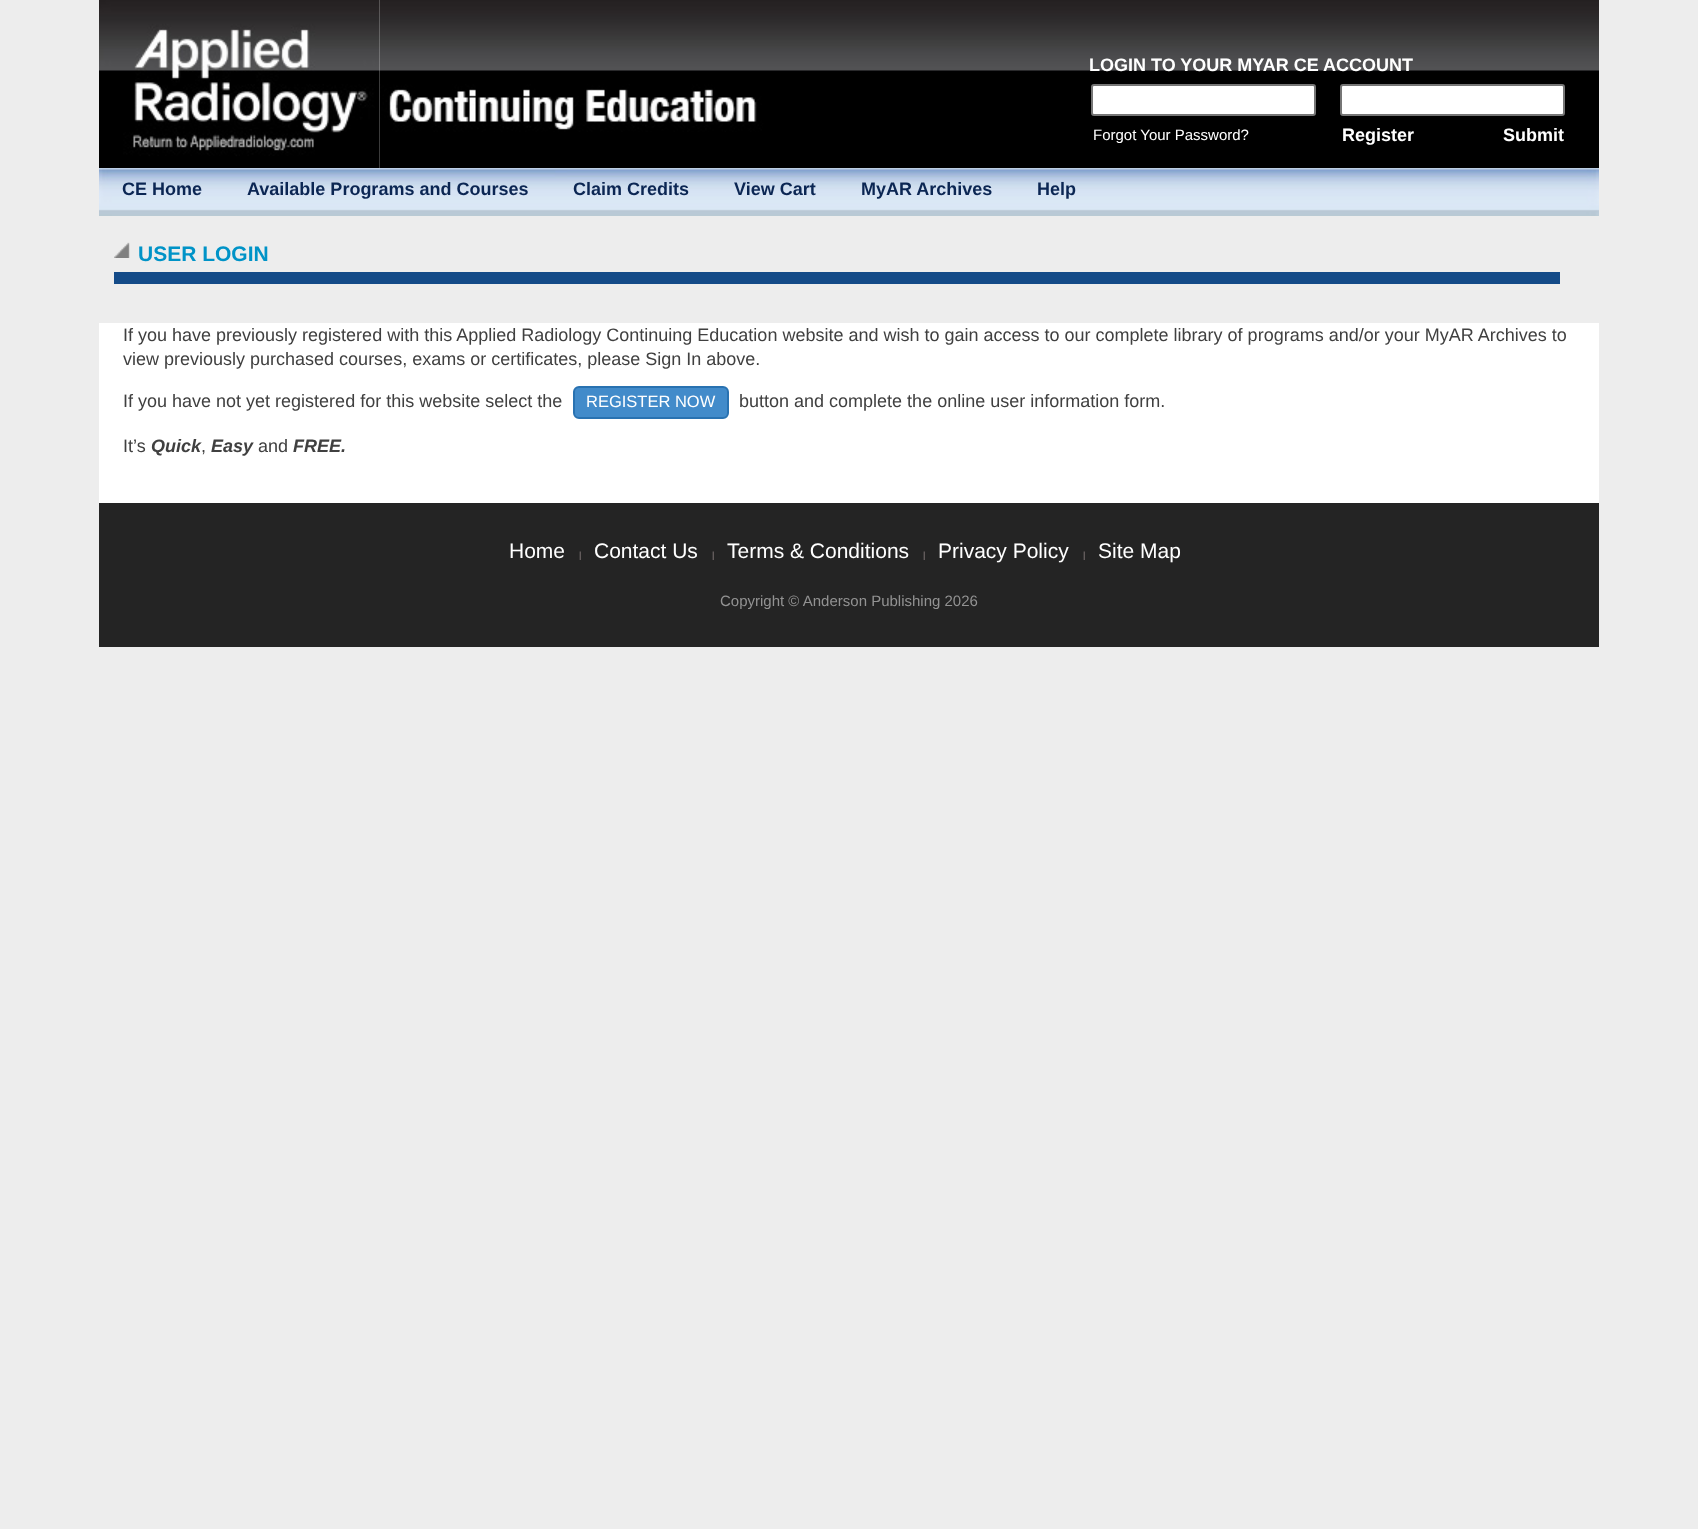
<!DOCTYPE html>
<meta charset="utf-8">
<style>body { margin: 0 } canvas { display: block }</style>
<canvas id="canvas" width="1698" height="1529"></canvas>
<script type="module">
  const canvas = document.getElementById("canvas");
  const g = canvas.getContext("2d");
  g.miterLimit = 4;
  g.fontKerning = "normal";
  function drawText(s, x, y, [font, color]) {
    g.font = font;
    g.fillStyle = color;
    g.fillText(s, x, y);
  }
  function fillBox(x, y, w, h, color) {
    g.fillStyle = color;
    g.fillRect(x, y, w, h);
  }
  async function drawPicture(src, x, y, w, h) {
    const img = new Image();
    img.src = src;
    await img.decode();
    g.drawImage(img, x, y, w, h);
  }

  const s1 = ["bold 18px Liberation Sans", "#FFFFFF"];
  const s2 = ["15px Liberation Sans", "#FFFFFF"];
  const s3 = ["bold 18px Liberation Sans", "#0B2653"];
  const s4 = ["bold 21px Liberation Sans", "#0093C7"];
  const s5 = ["18px Liberation Sans", "#404040"];
  const s6 = ["16.5px Liberation Sans", "#FFFFFF"];
  const s7 = ["italic bold 18px Liberation Sans", "#404040"];
  const s8 = ["21px Liberation Sans", "#FFFFFF"];
  const s9 = ["9px Liberation Sans", "#948888"];
  const s10 = ["15px Liberation Sans", "#929292"];

  fillBox(0, 0, 1698, 1529, "#EDEDED");
  await drawPicture("pic2.png", 379, 0, 1220, 168);
  await drawPicture("pic1.png", 99, 0, 281, 168);
  drawText("LOGIN TO YOUR MYAR CE ACCOUNT", 1089, 71, s1);
  g.beginPath();
  g.roundRect(1092, 85, 223, 30, 2);
  g.fill();
  g.strokeStyle = "#767676";
  g.lineWidth = 2;
  g.stroke();
  g.beginPath();
  g.roundRect(1341, 85, 223, 30, 2);
  g.fill();
  g.stroke();
  drawText("Forgot Your Password?", 1093, 140, s2);
  drawText("Register", 1342, 141, s1);
  drawText("Submit", 1503, 141, s1);
  await drawPicture("pic3.png", 99, 168, 1500, 48);
  drawText("CE Home", 122, 195, s3);
  drawText("Available Programs and Courses", 247, 195, s3);
  drawText("Claim Credits", 573, 195, s3);
  drawText("View Cart", 734, 195, s3);
  drawText("MyAR Archives", 861, 195, s3);
  drawText("Help", 1037, 195, s3);
  await drawPicture("pic4.png", 114, 242, 16, 16);
  fillBox(114, 272, 1446, 12, "#144B88");
  drawText("USER LOGIN", 138, 261, s4);
  fillBox(99, 323, 1500, 180, "#FFFFFF");
  drawText("If you have previously registered with this Applied Radiology Continuing Education website and wish to gain access to our complete library of programs and/or your MyAR Archives to", 123, 341, s5);
  drawText("view previously purchased courses, exams or certificates, please Sign In above.", 123, 365, s5);
  drawText("If you have not yet registered for this website select the", 123, 407, s5);
  g.fillStyle = "#428BCA";
  g.beginPath();
  g.roundRect(574, 387, 154, 31, 5);
  g.fill();
  g.strokeStyle = "#2972B1";
  g.stroke();
  drawText("REGISTER NOW", 586, 407, s6);
  drawText("button and complete the online user information form.", 739, 407, s5);
  drawText("It’s", 123, 452, s5);
  drawText("Quick", 151, 452, s7);
  drawText("Easy", 211, 452, s7);
  drawText("and", 258, 452, s5);
  drawText("FREE.", 293, 452, s7);
  drawText(",", 201, 452, s5);
  fillBox(99, 503, 1500, 144, "#242424");
  drawText("Home", 509, 558, s8);
  drawText("|", 579, 558, s9);
  drawText("Contact Us", 594, 558, s8);
  drawText("|", 712, 558, s9);
  drawText("Terms & Conditions", 727, 558, s8);
  drawText("|", 923, 558, s9);
  drawText("Privacy Policy", 938, 558, s8);
  drawText("|", 1083, 558, s9);
  drawText("Site Map", 1098, 558, s8);
  drawText("Copyright © Anderson Publishing 2026", 720, 606, s10);
</script>
